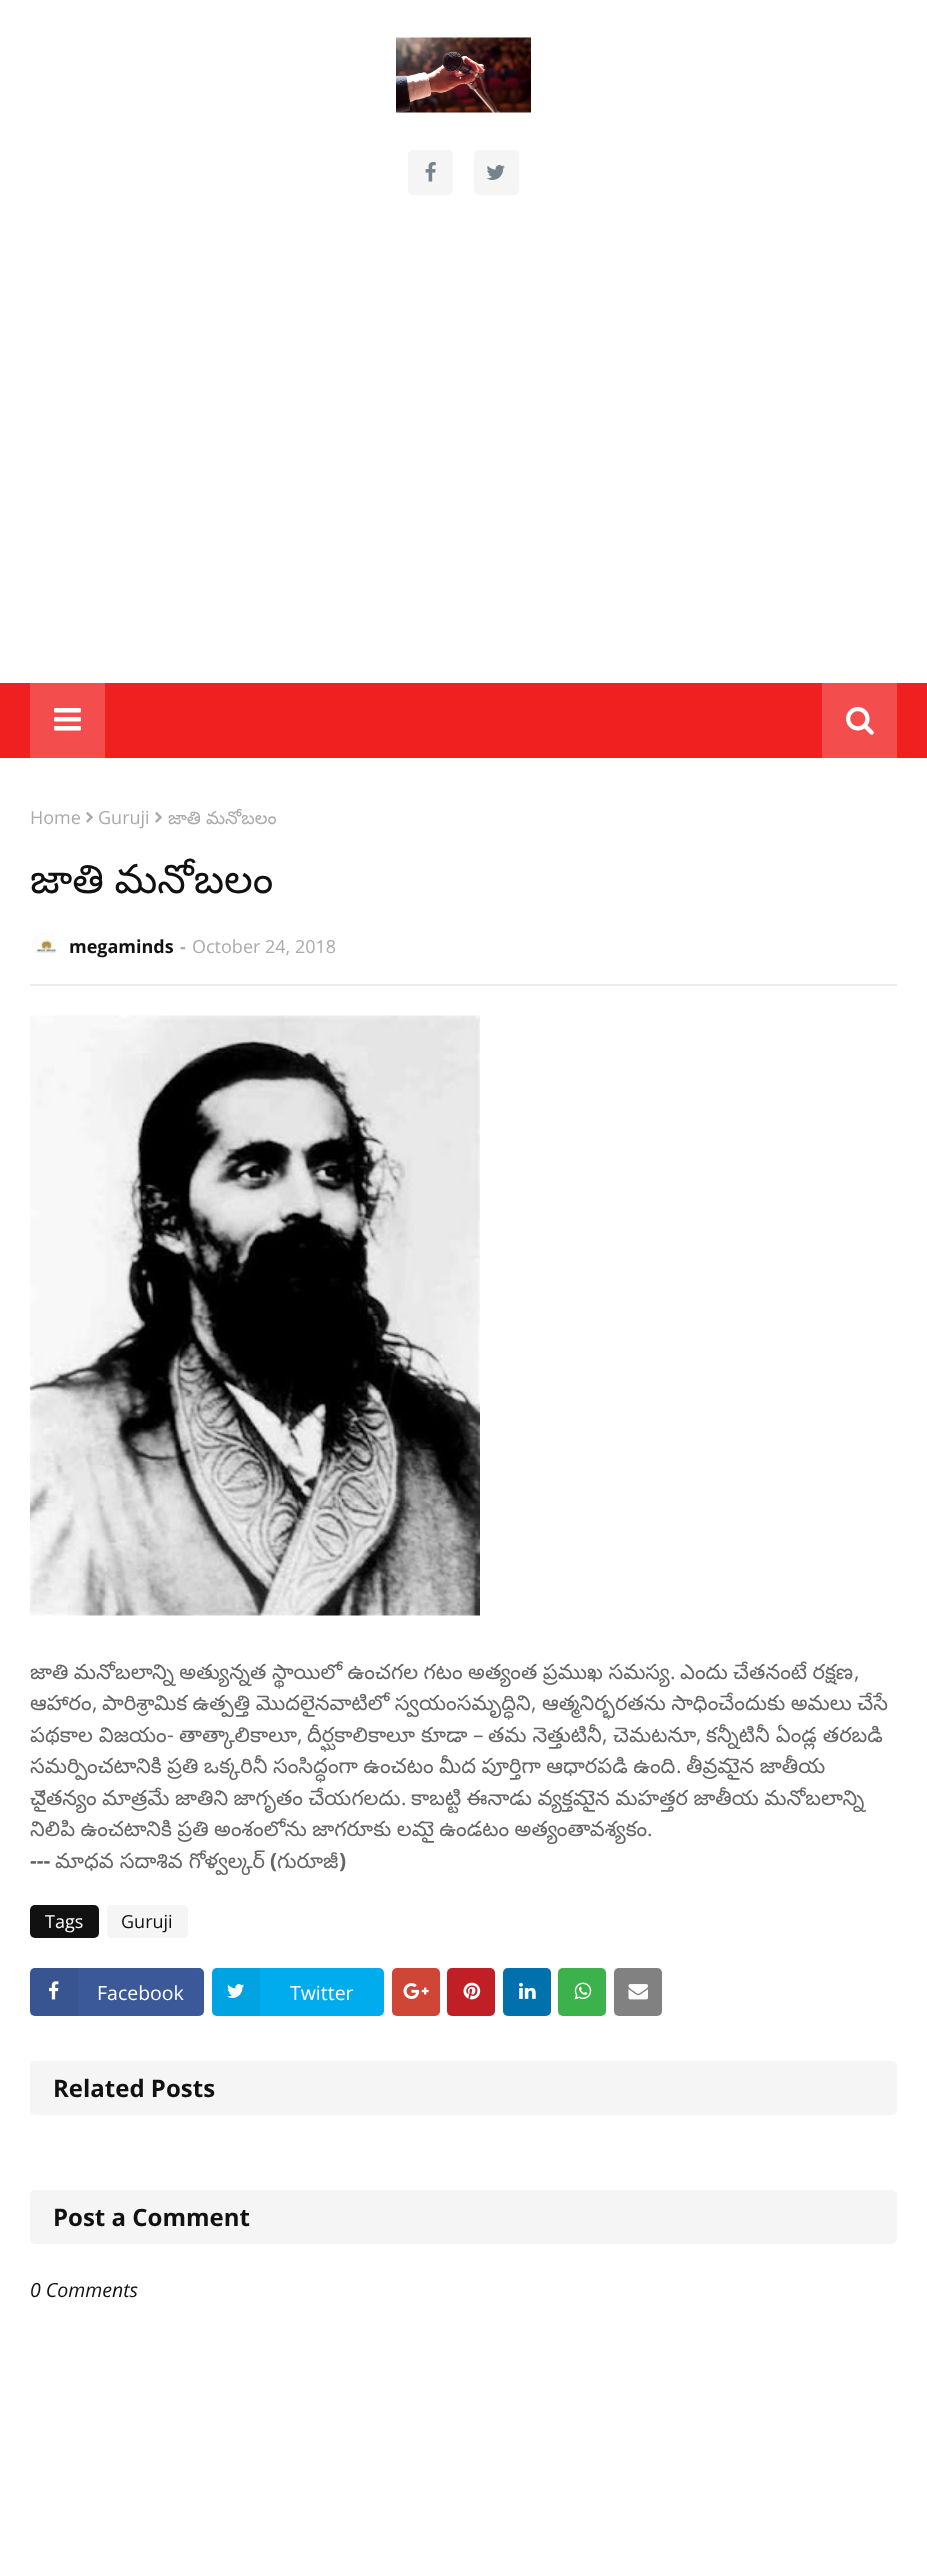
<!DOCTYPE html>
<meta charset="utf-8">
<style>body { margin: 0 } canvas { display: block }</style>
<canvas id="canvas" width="927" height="2575"></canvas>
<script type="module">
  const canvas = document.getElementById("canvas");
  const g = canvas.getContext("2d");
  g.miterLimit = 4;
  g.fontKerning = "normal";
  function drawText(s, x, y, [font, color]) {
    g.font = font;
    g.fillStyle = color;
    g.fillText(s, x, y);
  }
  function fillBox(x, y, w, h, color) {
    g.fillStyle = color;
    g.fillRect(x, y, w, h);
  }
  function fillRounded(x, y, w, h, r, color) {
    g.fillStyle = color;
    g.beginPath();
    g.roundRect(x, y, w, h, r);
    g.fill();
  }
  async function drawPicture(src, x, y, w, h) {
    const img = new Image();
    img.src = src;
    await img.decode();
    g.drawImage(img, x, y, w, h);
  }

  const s1 = ["18px Open Sans", "#AAAAAA"];
  const s2 = ["18px Noto Sans Telugu", "#AAAAAA"];
  const s3 = ["40.5px Noto Sans Telugu", "#111111"];
  const s4 = ["bold 18px Open Sans", "#111111"];
  const s5 = ["bold 18px Open Sans", "#AAAAAA"];
  const s6 = ["21px Noto Sans Telugu", "#656565"];
  const s7 = ["21px Open Sans", "#656565"];
  const s8 = ["bold 21px Open Sans", "#656565"];
  const s9 = ["18px Open Sans", "#FFFFFF"];
  const s10 = ["18px Open Sans", "#111111"];
  const s11 = ["19.5px Open Sans", "#FFFFFF"];
  const s12 = ["bold 24px Open Sans", "#111111"];
  const s13 = ["italic 19.5px Open Sans", "#111111"];

  fillBox(0, 0, 927, 2575, "#FFFFFF");
  fillBox(614, 1968, 48, 48, "#F2F2F2");
  fillBox(558, 1968, 48, 48, "#F2F2F2");
  fillBox(503, 1968, 48, 48, "#F2F2F2");
  fillBox(447, 1968, 48, 48, "#F2F2F2");
  fillBox(392, 1968, 48, 48, "#F2F2F2");
  await drawPicture("pic1.png", 396, 37, 135, 76);
  fillRounded(408, 150, 45, 45, 5, "#F5F5F5");
  await drawPicture("pic2.png", 425, 162, 11, 20);
  fillRounded(474, 150, 45, 45, 5, "#F5F5F5");
  await drawPicture("pic3.png", 486, 165, 19, 15);
  fillBox(0, 683, 927, 75, "#F12020");
  fillBox(30, 683, 75, 75, "#F44D4D");
  await drawPicture("pic4.png", 54, 708, 27, 23);
  fillBox(822, 683, 75, 75, "#F44D4D");
  await drawPicture("pic5.png", 846, 706, 28, 29);
  drawText("Home", 30, 824, s1);
  await drawPicture("pic6.png", 86, 812, 7, 11);
  drawText("Guruji", 98, 824, s1);
  await drawPicture("pic6.png", 155, 812, 7, 11);
  drawText("జాతి మనోబలం", 168, 824, s2);
  g.wordSpacing = "-1px";
  drawText("జాతి మనోబలం", 30, 893, s3);
  await drawPicture("pic7.png", 32, 932, 25, 24);
  g.wordSpacing = "0px";
  drawText("megaminds", 69, 953, s4);
  drawText("-", 180, 953, s5);
  drawText("October 24, 2018", 192, 953, s1);
  fillBox(30, 984, 867, 2, "#EBEBEB");
  await drawPicture("pic8.png", 30, 1015, 450, 601);
  g.wordSpacing = "-0.5px";
  drawText("జాతి మనోబలాన్ని అత్యున్నత స్థాయిలో ఉంచగల గటం అత్యంత ప్రముఖ సమస్య", 30, 1679, s6);
  g.wordSpacing = "0px";
  drawText(".", 670, 1679, s7);
  g.wordSpacing = "-0.5px";
  drawText("ఎందు చేతనంటే రక్షణ", 680, 1679, s6);
  g.wordSpacing = "0px";
  drawText(",", 854, 1679, s7);
  drawText("ఆహారం", 30, 1710, s6);
  drawText(",", 92, 1710, s7);
  g.wordSpacing = "-0.5px";
  drawText("పారిశ్రామిక ఉత్పత్తి మొదలైనవాటిలో స్వయంసమృద్ధిని", 102, 1710, s6);
  g.wordSpacing = "0px";
  drawText(",", 531, 1710, s7);
  g.wordSpacing = "-0.5px";
  drawText("ఆత్మనిర్భరతను సాధించేందుకు అమలు చేసే", 542, 1710, s6);
  g.wordSpacing = "0px";
  drawText("పథకాల విజయం", 30, 1742, s6);
  drawText("-", 167, 1742, s7);
  drawText("తాత్కాలికాలూ", 179, 1742, s6);
  drawText("దీర్ఘకాలికాలూ కూడా", 307, 1742, s6);
  drawText("–", 473, 1742, s7);
  drawText("తమ నెత్తుటినీ", 488, 1742, s6);
  drawText("చెమటనూ", 613, 1742, s6);
  drawText("కన్నీటినీ ఏండ్ల తరబడి", 706, 1742, s6);
  drawText(",", 297, 1742, s7);
  drawText(",", 602, 1742, s7);
  drawText(",", 696, 1742, s7);
  g.wordSpacing = "-0.5px";
  drawText("సమర్పించటానికి ప్రతి ఒక్కరినీ సంసిద్ధంగా ఉంచటం మీద పూర్తిగా ఆధారపడి ఉంది", 30, 1773, s6);
  g.wordSpacing = "0px";
  drawText(".", 676, 1773, s7);
  g.wordSpacing = "-0.5px";
  drawText("తీవ్రమైన జాతీయ", 686, 1773, s6);
  drawText("చైతన్యం మాత్రమే జాతిని జాగృతం చేయగలదు", 30, 1805, s6);
  g.wordSpacing = "0px";
  drawText(".", 401, 1805, s7);
  g.wordSpacing = "-0.5px";
  drawText("కాబట్టి ఈనాడు వ్యక్తమైన మహత్తర జాతీయ మనోబలాన్ని", 411, 1805, s6);
  drawText("నిలిపి ఉంచటానికి ప్రతి అంశంలోను జాగరూకు లమై ఉండటం అత్యంతావశ్యకం", 30, 1836, s6);
  g.wordSpacing = "0px";
  drawText(".", 647, 1836, s7);
  drawText("---", 30, 1868, s8);
  drawText("మాధవ సదాశివ గోళ్వల్కర్‌", 55, 1868, s6);
  drawText("(", 270, 1868, s8);
  drawText("గురూజీ", 277, 1868, s6);
  drawText(")", 339, 1868, s8);
  fillRounded(30, 1905, 69, 33, 5, "#111111");
  drawText("Tags", 45, 1928, s9);
  fillRounded(107, 1905, 81, 33, 5, "#F5F5F5");
  drawText("Guruji", 121, 1928, s10);
  fillRounded(30, 1968, 174, 48, 5, "#3B5999");
  fillBox(30, 1968, 48, 48, "rgba(0, 0, 0, 0.05)");
  await drawPicture("pic9.png", 49, 1981, 10, 19);
  drawText("Facebook", 97, 2000, s11);
  fillRounded(212, 1968, 172, 48, 5, "#00ACEE");
  fillBox(212, 1968, 48, 48, "rgba(0, 0, 0, 0.05)");
  await drawPicture("pic10.png", 227, 1984, 17, 14);
  drawText("Twitter", 290, 2000, s11);
  fillRounded(392, 1968, 48, 48, 5, "#D04636");
  await drawPicture("pic11.png", 403, 1983, 26, 16);
  fillRounded(447, 1968, 48, 48, 5, "#C01F25");
  await drawPicture("pic12.png", 463, 1982, 18, 18);
  fillRounded(503, 1968, 48, 48, 5, "#0071AC");
  await drawPicture("pic13.png", 519, 1982, 17, 17);
  fillRounded(558, 1968, 48, 48, 5, "#3CB24C");
  await drawPicture("pic14.png", 574, 1982, 18, 18);
  fillRounded(614, 1968, 48, 48, 5, "#818181");
  await drawPicture("pic15.png", 628, 1984, 20, 16);
  fillRounded(30, 2061, 867, 54, 5, "#F5F5F5");
  drawText("Related Posts", 53, 2097, s12);
  fillRounded(30, 2190, 867, 54, 5, "#F5F5F5");
  drawText("Post a Comment", 53, 2226, s12);
  drawText("0 Comments", 30, 2297, s13);
</script>
